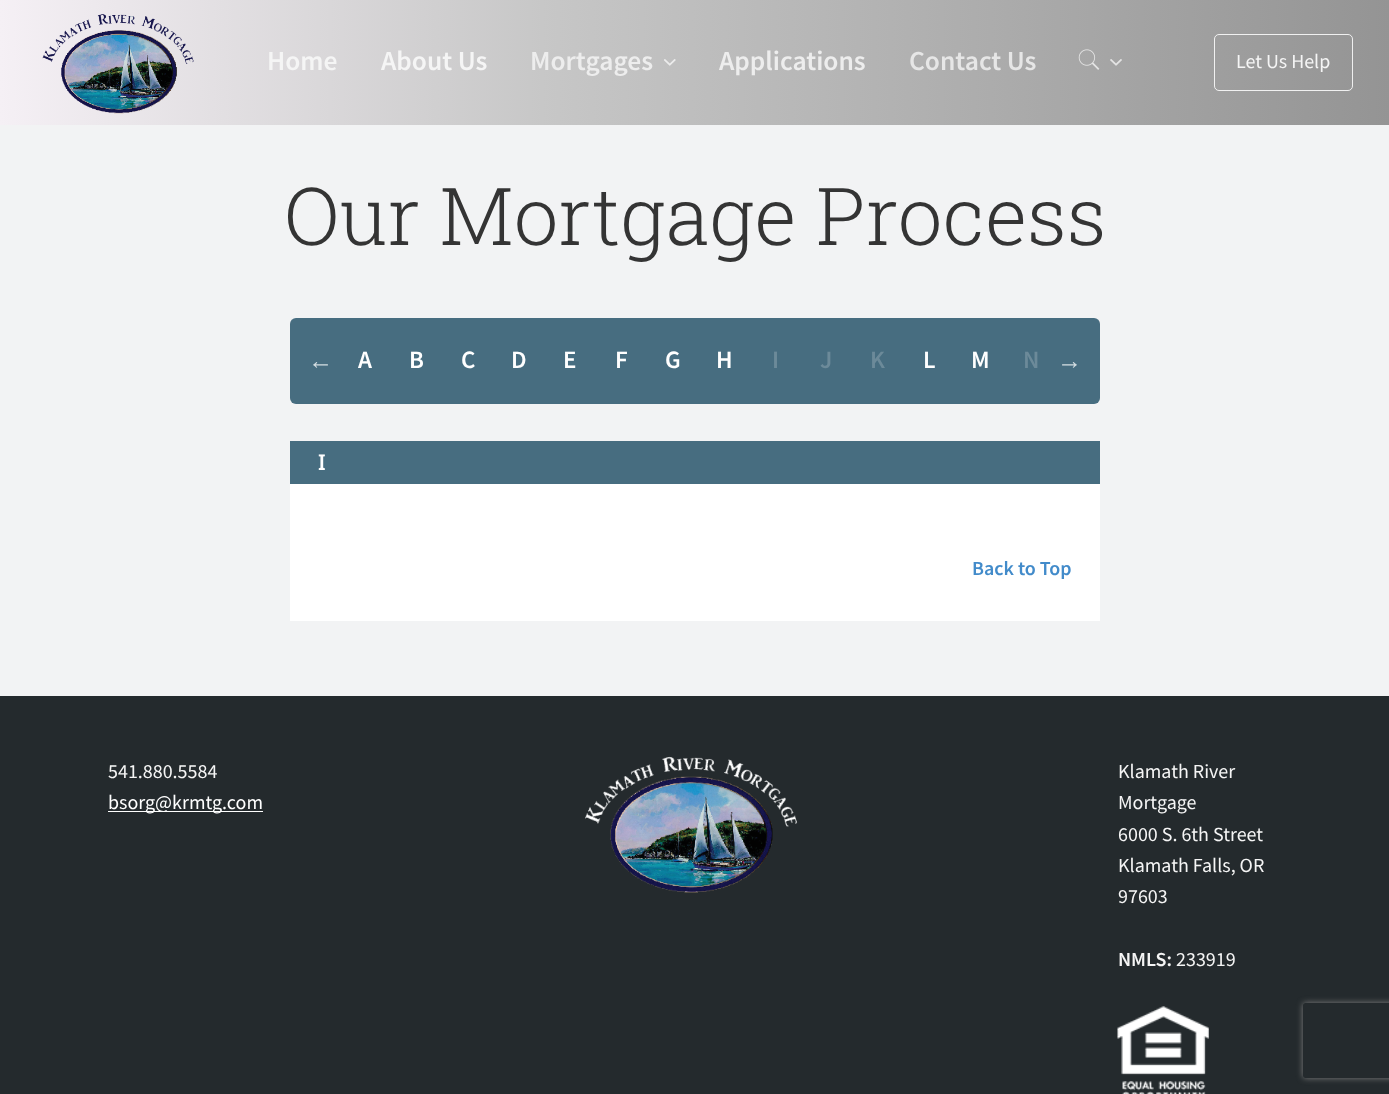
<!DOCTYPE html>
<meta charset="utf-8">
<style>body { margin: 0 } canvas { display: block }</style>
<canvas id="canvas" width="1389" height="1094"></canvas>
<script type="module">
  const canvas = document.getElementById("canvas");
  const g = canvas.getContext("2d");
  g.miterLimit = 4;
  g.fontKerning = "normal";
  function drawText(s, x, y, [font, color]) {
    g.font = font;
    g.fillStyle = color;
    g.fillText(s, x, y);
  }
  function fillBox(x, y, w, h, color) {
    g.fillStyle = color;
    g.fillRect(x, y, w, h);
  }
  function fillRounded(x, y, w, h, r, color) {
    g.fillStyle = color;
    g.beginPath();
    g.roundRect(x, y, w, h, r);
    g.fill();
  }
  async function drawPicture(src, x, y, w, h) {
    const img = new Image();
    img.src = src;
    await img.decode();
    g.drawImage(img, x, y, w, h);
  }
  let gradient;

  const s1 = ["600 27.5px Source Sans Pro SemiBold", "#F5F5F5"];
  const s2 = ["600 27.5px Source Sans Pro SemiBold", "#EDEDED"];
  const s3 = ["600 27.5px Source Sans Pro SemiBold", "#E6E6E6"];
  const s4 = ["20px Source Sans Pro", "#F5F5F5"];
  const s5 = ["300 80px Roboto Slab", "#343434"];
  const s6 = ["25px Liberation Serif", "#D1DBDF"];
  const s7 = ["600 25px Source Sans Pro SemiBold", "#FFFFFF"];
  const s8 = ["600 25px Source Sans Pro SemiBold", "#6C8A99"];
  const s9 = ["bold 21px Roboto Slab", "#FFFFFF"];
  const s10 = ["600 20px Source Sans Pro SemiBold", "#428BCA"];
  const s11 = ["20px Source Sans Pro", "#FFFFFF"];
  const s12 = ["600 20px Source Sans Pro SemiBold", "#F5F5F5"];

  fillBox(0, 0, 1389, 1094, "#F2F3F4");
  gradient = g.createLinearGradient(0, 63, 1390, 62);
  gradient.addColorStop(0, "#F5F0F5");
  gradient.addColorStop(0.39, "#C7C7C7");
  gradient.addColorStop(1, "#949494");
  g.fillStyle = gradient;
  g.fillRect(0, 0, 1389, 125);
  await drawPicture("pic1.png", 42, 14, 152, 100);
  drawText("Home", 267, 70, s1);
  drawText("About Us", 381, 70, s1);
  drawText("Mortgages", 530, 70, s2);
  await drawPicture("pic2.png", 664, 59, 12, 7);
  drawText("Applications", 719, 70, s2);
  drawText("Contact Us", 909, 70, s3);
  await drawPicture("pic3.png", 1078, 49, 22, 21);
  await drawPicture("pic4.png", 1110, 59, 12, 7);
  g.beginPath();
  g.roundRect(1214.5, 34.5, 138, 56, 4.5);
  g.strokeStyle = "rgba(255, 255, 255, 0.85)";
  g.stroke();
  drawText("Let Us Help", 1236, 68, s4);
  drawText("Our Mortgage Process", 284, 245, s5);
  fillRounded(290, 318, 810, 86, 6, "#476D80");
  drawText("←", 308, 369, s6);
  drawText("A", 358, 368, s7);
  drawText("B", 409, 368, s7);
  drawText("C", 461, 368, s7);
  drawText("D", 511, 368, s7);
  drawText("E", 563, 368, s7);
  drawText("F", 615, 368, s7);
  drawText("G", 665, 368, s7);
  drawText("H", 716, 368, s7);
  drawText("I", 772, 368, s8);
  drawText("J", 820, 368, s8);
  drawText("K", 870, 368, s8);
  drawText("L", 923, 368, s7);
  drawText("M", 971, 368, s7);
  drawText("N", 1023, 368, s8);
  drawText("→", 1057, 369, s6);
  fillBox(290, 441, 810, 43, "#476D80");
  drawText("I", 318, 470, s9);
  fillBox(290, 484, 810, 137, "#FFFFFF");
  drawText("Back to Top", 972, 575, s10);
  fillBox(0, 696, 1389, 398, "#242A2D");
  drawText("541.880.5584", 108, 778, s4);
  fillBox(108, 811, 155, 1, "#FFFFFF");
  drawText("bsorg@krmtg.com", 108, 809, s11);
  await drawPicture("pic5.png", 585, 756, 213, 137);
  drawText("Klamath River", 1118, 778, s4);
  drawText("Mortgage", 1118, 809, s4);
  drawText("6000 S. 6th Street", 1118, 841, s4);
  drawText("Klamath Falls, OR", 1118, 872, s4);
  drawText("97603", 1118, 903, s4);
  drawText("NMLS:", 1118, 966, s12);
  drawText("233919", 1176, 966, s4);
  await drawPicture("pic6.png", 1117, 1006, 92, 88);
  g.save();
  g.beginPath();
  g.moveTo(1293, 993);
  g.lineTo(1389, 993);
  g.lineTo(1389, 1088);
  g.lineTo(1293, 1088);
  g.closePath();
  g.moveTo(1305.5, 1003);
  g.lineTo(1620.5, 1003);
  g.bezierCurveTo(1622, 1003, 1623, 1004, 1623, 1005.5);
  g.lineTo(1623, 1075.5);
  g.bezierCurveTo(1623, 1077, 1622, 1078, 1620.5, 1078);
  g.lineTo(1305.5, 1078);
  g.bezierCurveTo(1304, 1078, 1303, 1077, 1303, 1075.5);
  g.lineTo(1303, 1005.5);
  g.bezierCurveTo(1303, 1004, 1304, 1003, 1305.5, 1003);
  g.closePath();
  g.clip("evenodd");
  g.fillStyle = "#808080";
  g.filter = "blur(3px)";
  g.beginPath();
  g.roundRect(1303, 1003, 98, 75, 2.5);
  g.fill();
  g.filter = "none";
  g.restore();
</script>
